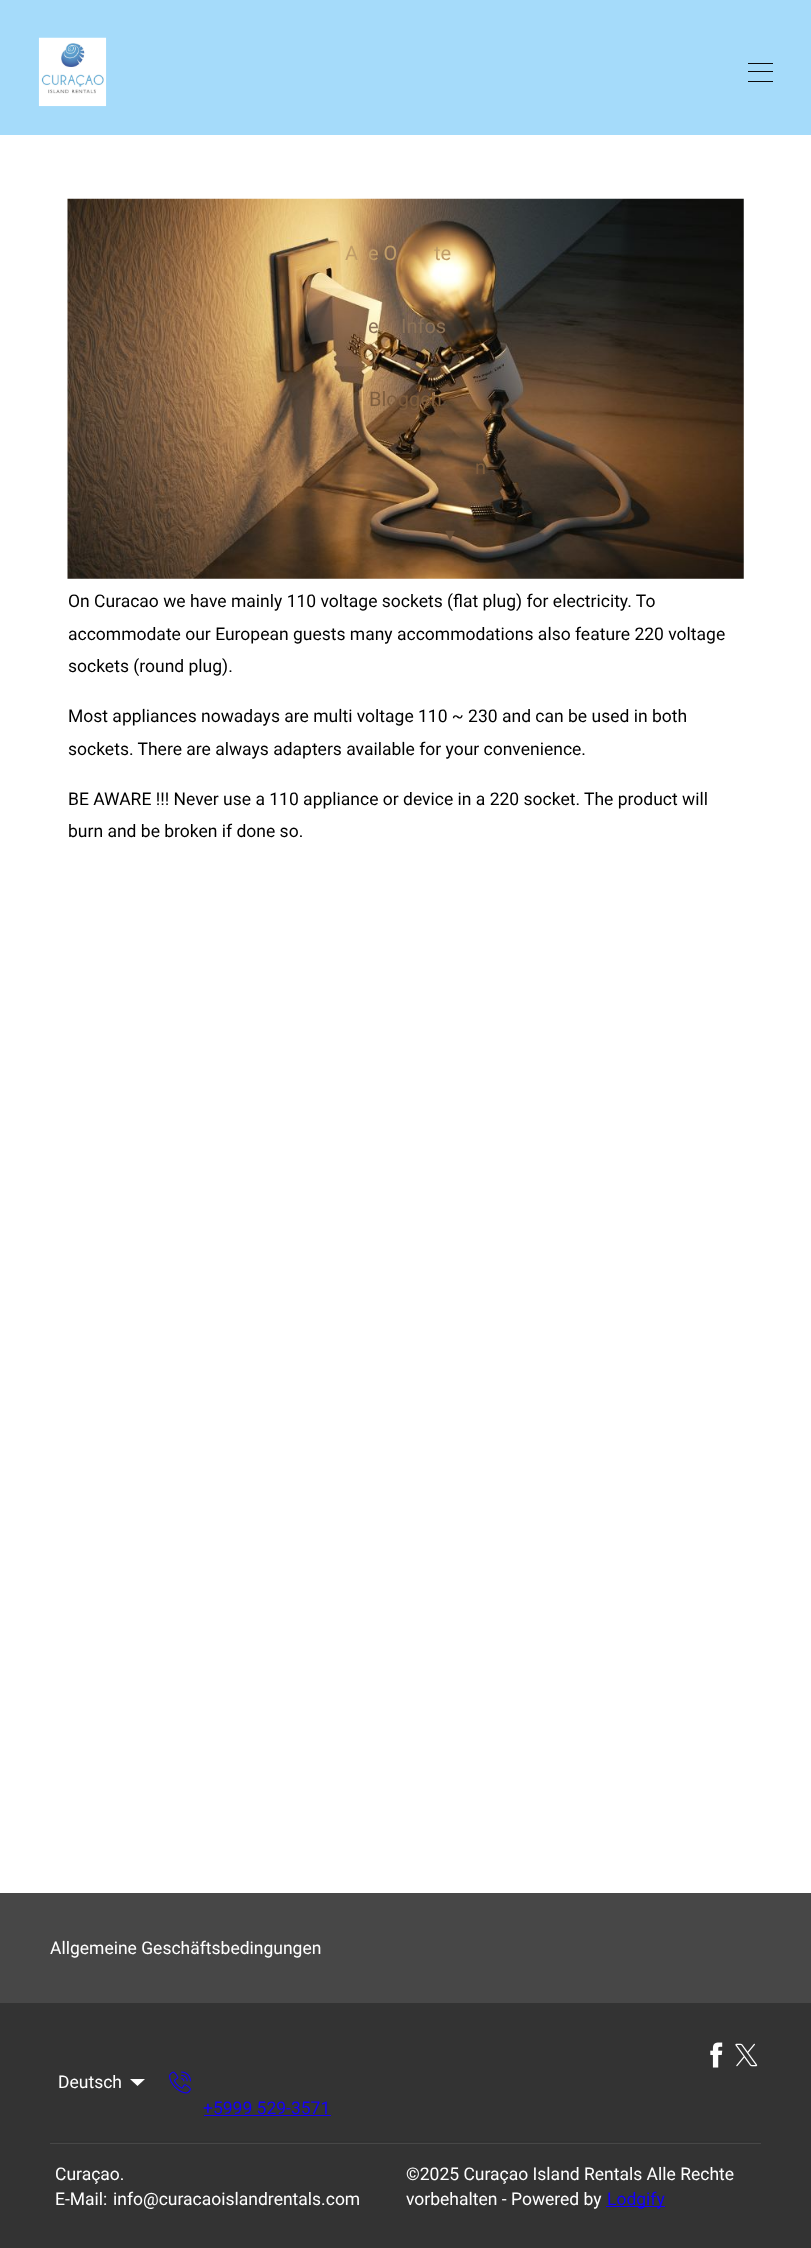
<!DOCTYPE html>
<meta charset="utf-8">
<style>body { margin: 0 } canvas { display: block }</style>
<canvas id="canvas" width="811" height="2248"></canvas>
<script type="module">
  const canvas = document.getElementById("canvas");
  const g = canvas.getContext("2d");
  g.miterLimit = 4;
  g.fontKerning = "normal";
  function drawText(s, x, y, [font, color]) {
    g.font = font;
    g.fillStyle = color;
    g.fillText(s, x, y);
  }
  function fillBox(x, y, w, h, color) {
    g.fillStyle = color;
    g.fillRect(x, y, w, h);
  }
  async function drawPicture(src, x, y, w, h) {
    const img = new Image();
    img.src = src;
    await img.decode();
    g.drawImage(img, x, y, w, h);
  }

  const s1 = ["20px Roboto", "#C19D68"];
  const s2 = ["20px Roboto", "#8C7359"];
  const s3 = ["20px Roboto", "#7E5D3D"];
  const s4 = ["20px DejaVu Sans", "#674E37"];
  const s5 = ["17.5px Roboto", "#000000"];
  const s6 = ["17.5px Roboto", "#FFFFFF"];
  const s7 = ["17.5px Roboto", "#1500FA"];

  fillBox(0, 0, 811, 2248, "#FFFFFF");
  fillBox(0, 0, 811, 135, "#A5DBFA");
  await drawPicture("pic1.png", 38, 37, 69, 70);
  fillBox(748, 63, 25, 1, "#0A0A0A");
  fillBox(748, 71, 25, 1, "#0A0A0A");
  fillBox(748, 81, 25, 1, "#0A0A0A");
  await drawPicture("pic2.png", 67, 198, 677, 381);
  drawText("A", 345, 260, s1);
  drawText("e O", 368, 260, s1);
  drawText("te", 434, 260, s1);
  drawText("e", 368, 333, s2);
  drawText("Infos", 401, 333, s2);
  drawText("Bloggen", 369, 406, s3);
  drawText("n", 475, 474, s3);
  drawText("▾", 445, 541, s4);
  drawText("On Curacao we have mainly 110 voltage sockets (flat plug) for electricity. To", 68, 607, s5);
  drawText("accommodate our European guests many accommodations also feature 220 voltage", 68, 640, s5);
  drawText("sockets (round plug).", 68, 672, s5);
  drawText("Most appliances nowadays are multi voltage 110 ~ 230 and can be used in both", 68, 722, s5);
  drawText("sockets. There are always adapters available for your convenience.", 68, 755, s5);
  drawText("BE AWARE !!! Never use a 110 appliance or device in a 220 socket. The product will", 68, 805, s5);
  drawText("burn and be broken if done so.", 68, 837, s5);
  fillBox(0, 1893, 811, 110, "#474747");
  drawText("Allgemeine Geschäftsbedingungen", 50, 1954, s6);
  fillBox(0, 2003, 811, 245, "#333333");
  await drawPicture("pic3.png", 710, 2042, 13, 26);
  await drawPicture("pic4.png", 735, 2043, 23, 24);
  drawText("Deutsch", 58, 2088, s6);
  g.beginPath();
  g.moveTo(145, 2079);
  g.lineTo(137.5, 2086);
  g.lineTo(130, 2079);
  g.closePath();
  g.fill();
  await drawPicture("pic5.png", 169, 2071, 22, 23);
  drawText("+5999 529-3571", 203, 2114, s7);
  fillBox(204, 2115, 127, 1, "#1500FA");
  fillBox(50, 2141, 711, 1, "#303131");
  fillBox(50, 2143, 711, 1, "#474747");
  drawText("Curaçao.", 55, 2180, s6);
  drawText("E-Mail:", 55, 2205, s6);
  drawText("info@curacaoislandrentals.com", 113, 2205, s6);
  drawText("©2025 Curaçao Island Rentals Alle Rechte", 406, 2180, s6);
  drawText("vorbehalten - Powered by", 406, 2205, s6);
  fillBox(606, 2206, 59, 1, "#1500FA");
  drawText("Lodgify", 607, 2205, s7);
</script>
